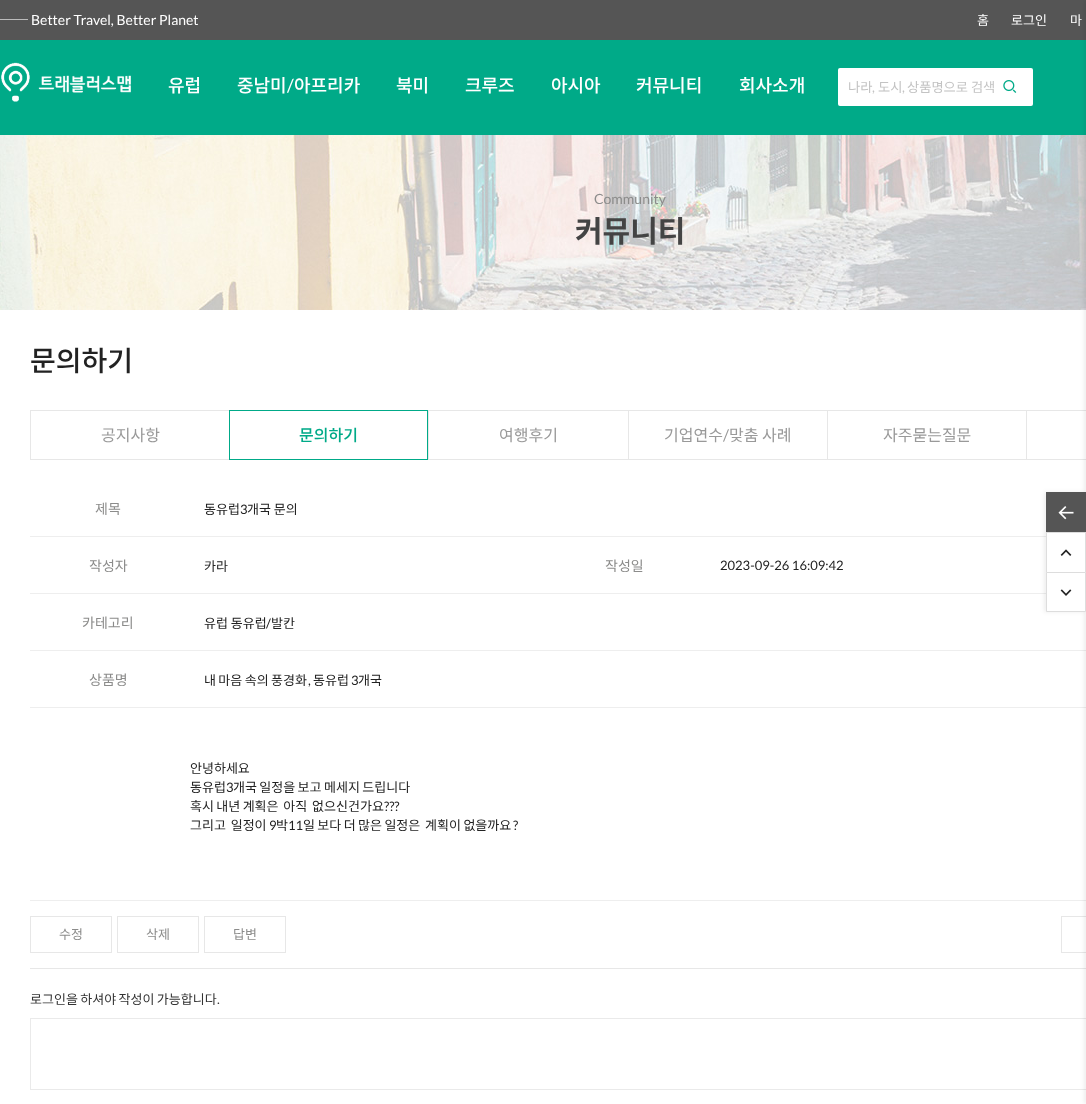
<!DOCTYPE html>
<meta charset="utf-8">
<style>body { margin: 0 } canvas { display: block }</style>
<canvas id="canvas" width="1086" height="1104"></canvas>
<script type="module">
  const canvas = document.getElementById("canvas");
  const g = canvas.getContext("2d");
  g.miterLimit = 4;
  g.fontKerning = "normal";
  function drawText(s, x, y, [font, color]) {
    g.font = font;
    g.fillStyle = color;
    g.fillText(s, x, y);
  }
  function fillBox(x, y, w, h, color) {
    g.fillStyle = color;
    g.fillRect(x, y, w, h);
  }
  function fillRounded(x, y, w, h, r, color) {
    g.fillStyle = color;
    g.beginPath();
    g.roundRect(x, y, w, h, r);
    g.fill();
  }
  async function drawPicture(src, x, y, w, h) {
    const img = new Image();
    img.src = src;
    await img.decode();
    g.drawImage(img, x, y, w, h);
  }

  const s1 = ["14px Noto Sans KR", "#FFFFFF"];
  const s2 = ["14px Lato", "#FFFFFF"];
  const s3 = ["13px Noto Sans KR", "#FFFFFF"];
  const s4 = ["500 18px Noto Sans KR", "#FFFFFF"];
  const s5 = ["18px Lato", "#FFFFFF"];
  const s6 = ["13.25px Noto Sans KR", "#C3C3C3"];
  const s7 = ["13.25px Lato", "#C3C3C3"];
  const s8 = ["14px Lato", "#8C8C8B"];
  const s9 = ["bold 30px Noto Sans KR", "#444444"];
  const s10 = ["500 28px Noto Sans KR", "#222222"];
  const s11 = ["16px Noto Sans KR", "#999999"];
  const s12 = ["500 16px Noto Sans KR", "#00AA88"];
  const s13 = ["16px Lato", "#999999"];
  const s14 = ["14px Noto Sans KR", "#8C8C8B"];
  const s15 = ["13px Noto Sans KR", "#222222"];
  const s16 = ["13px Lato", "#222222"];
  const s17 = ["13px Noto Sans KR", "#8C8C8B"];
  const s18 = ["13px Noto Sans KR", "#333333"];
  const s19 = ["13px Lato", "#333333"];

  fillBox(0, 0, 1086, 1104, "#FFFFFF");
  fillBox(0, 40, 1086, 95, "#00AA88");
  fillBox(0, 0, 1086, 40, "#555555");
  await drawPicture("pic6.png", 0, 135, 1086, 175);
  g.strokeStyle = "#E7E7E7";
  g.strokeRect(1026.5, 410.5, 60, 49);
  fillBox(30, 650, 1056, 1, "#EEEEEE");
  fillBox(30, 707, 1056, 1, "#EEEEEE");
  fillBox(30, 900, 1056, 1, "#EEEEEE");
  g.strokeRect(1061.5, 916.5, 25, 36);
  fillBox(30, 968, 1056, 1, "#E7E7E7");
  g.strokeStyle = "#EAEAEA";
  g.strokeRect(30.5, 1018.5, 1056, 71);
  g.fillStyle = "rgba(0, 0, 0, 0.07)";
  g.filter = "blur(2px)";
  g.beginPath();
  g.rect(1084, 0, 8, 1104);
  g.fill();
  g.filter = "none";
  fillBox(30, 536, 1016, 1, "#EEEEEE");
  fillBox(30, 593, 1016, 1, "#EEEEEE");
  g.fillStyle = "rgba(0, 0, 0, 0.07)";
  g.filter = "blur(2px)";
  g.beginPath();
  g.rect(1044, 492, 40, 120);
  g.fill();
  g.filter = "none";
  fillBox(1046, 492, 40, 40, "#555555");
  await drawPicture("pic1.png", 1058, 506, 16, 14);
  fillBox(1047, 533, 38, 39, "#FFFFFF");
  fillBox(1046, 532, 40, 1, "#DDDDDD");
  fillBox(1085, 532, 1, 40, "#DDDDDD");
  fillBox(1046, 532, 1, 40, "#DDDDDD");
  await drawPicture("pic2.png", 1060, 549, 12, 7);
  g.fillStyle = "#FFFFFF";
  g.beginPath();
  g.rect(1046.5, 572.5, 39, 39);
  g.fill();
  g.strokeStyle = "#DDDDDD";
  g.stroke();
  await drawPicture("pic3.png", 1060, 589, 12, 7);
  drawText("──", 0, 25, s1);
  drawText("Better Travel, Better Planet", 31, 25, s2);
  drawText("홈", 977, 25, s3);
  drawText("로그인", 1011, 25, s3);
  drawText("마", 1070, 25, s3);
  await drawPicture("pic4.png", 1, 62, 130, 40);
  drawText("유럽", 168, 92, s4);
  drawText("중남미", 237, 92, s4);
  drawText("/", 287, 92, s5);
  drawText("아프리카", 294, 92, s4);
  drawText("북미", 396, 92, s4);
  drawText("크루즈", 465, 92, s4);
  drawText("아시아", 551, 92, s4);
  drawText("커뮤니티", 636, 92, s4);
  drawText("회사소개", 739, 92, s4);
  fillRounded(838, 68, 195, 38, 2, "#FFFFFF");
  drawText("나라", 848, 92, s6);
  drawText(",", 872, 92, s7);
  drawText("도시", 878, 92, s6);
  drawText(",", 902, 92, s7);
  drawText("상품명으로 검색", 907, 92, s6);
  await drawPicture("pic5.png", 1003, 80, 14, 13);
  drawText("Community", 594, 204, s8);
  drawText("커뮤니티", 575, 242, s9);
  drawText("문의하기", 30, 371, s10);
  fillBox(30, 410, 199, 1, "#E7E7E7");
  fillBox(30, 459, 199, 1, "#E7E7E7");
  fillBox(30, 410, 1, 50, "#E7E7E7");
  drawText("공지사항", 101, 441, s11);
  g.strokeStyle = "#00AA88";
  g.strokeRect(229.5, 410.5, 198, 49);
  drawText("문의하기", 299, 441, s12);
  fillBox(428, 410, 598, 1, "#E7E7E7");
  fillBox(428, 459, 598, 1, "#E7E7E7");
  fillBox(428, 410, 1, 50, "#E7E7E7");
  drawText("여행후기", 499, 441, s11);
  fillBox(628, 410, 1, 50, "#E7E7E7");
  drawText("기업연수", 664, 441, s11);
  drawText("/", 723, 441, s13);
  drawText("맞춤 사례", 729, 441, s11);
  fillBox(827, 410, 1, 50, "#E7E7E7");
  drawText("자주묻는질문", 883, 441, s11);
  drawText("제목", 95, 514, s14);
  drawText("동유럽", 204, 514, s15);
  drawText("3", 240, 514, s16);
  drawText("개국 문의", 247, 514, s15);
  drawText("작성자", 89, 571, s14);
  drawText("카라", 204, 571, s15);
  drawText("작성일", 605, 571, s14);
  drawText("2023-09-26 16:09:42", 720, 570, s16);
  drawText("카테고리", 82, 628, s14);
  drawText("유럽 동유럽", 204, 628, s15);
  drawText("/", 266, 628, s16);
  drawText("발칸", 271, 628, s15);
  drawText("상품명", 89, 685, s14);
  g.wordSpacing = "-0.5px";
  drawText("내 마음 속의 풍경화", 204, 685, s15);
  g.wordSpacing = "0px";
  drawText(",", 308, 685, s16);
  drawText("동유럽", 313, 685, s15);
  drawText("3", 351, 685, s16);
  drawText("개국", 358, 685, s15);
  drawText("안녕하세요", 190, 773, s15);
  drawText("동유럽", 190, 792, s15);
  drawText("3", 226, 792, s16);
  g.wordSpacing = "-0.5px";
  drawText("개국 일정을 보고 메세지 드립니다", 233, 792, s15);
  drawText("혹시 내년 계획은  아직  없으신건가요", 190, 811, s15);
  g.wordSpacing = "0px";
  drawText("???", 384, 811, s16);
  g.wordSpacing = "-0.5px";
  drawText("그리고  일정이", 190, 830, s15);
  g.wordSpacing = "0px";
  drawText("9", 269, 830, s16);
  drawText("박", 276, 830, s15);
  drawText("11", 288, 830, s16);
  g.wordSpacing = "-0.5px";
  drawText("일 보다 더 많은 일정은  계획이 없을까요", 303, 830, s15);
  g.wordSpacing = "0px";
  drawText("?", 513, 830, s16);
  g.strokeStyle = "#E7E7E7";
  g.strokeRect(30.5, 916.5, 81, 36);
  drawText("수정", 59, 939, s17);
  g.strokeRect(117.5, 916.5, 81, 36);
  drawText("삭제", 146, 939, s17);
  g.strokeRect(204.5, 916.5, 81, 36);
  drawText("답변", 233, 939, s17);
  g.wordSpacing = "-0.5px";
  drawText("로그인을 하셔야 작성이 가능합니다", 30, 1004, s18);
  g.wordSpacing = "0px";
  drawText(".", 217, 1004, s19);
</script>
